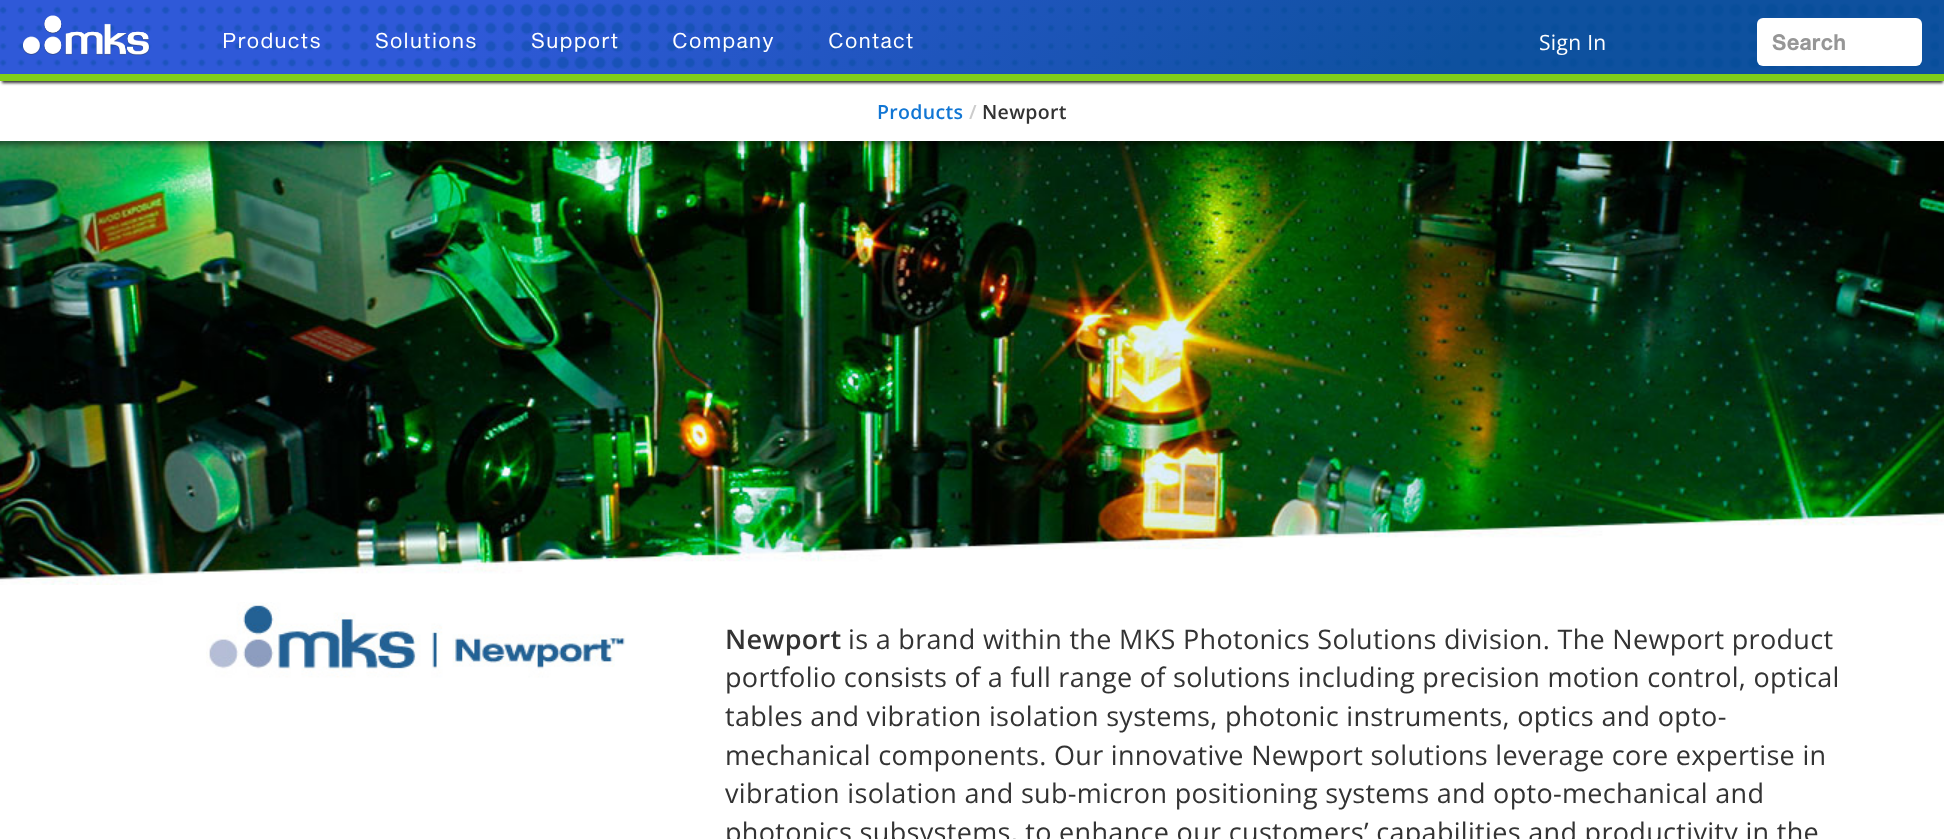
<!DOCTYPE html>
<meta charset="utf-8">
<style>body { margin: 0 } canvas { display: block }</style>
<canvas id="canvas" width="1944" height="839"></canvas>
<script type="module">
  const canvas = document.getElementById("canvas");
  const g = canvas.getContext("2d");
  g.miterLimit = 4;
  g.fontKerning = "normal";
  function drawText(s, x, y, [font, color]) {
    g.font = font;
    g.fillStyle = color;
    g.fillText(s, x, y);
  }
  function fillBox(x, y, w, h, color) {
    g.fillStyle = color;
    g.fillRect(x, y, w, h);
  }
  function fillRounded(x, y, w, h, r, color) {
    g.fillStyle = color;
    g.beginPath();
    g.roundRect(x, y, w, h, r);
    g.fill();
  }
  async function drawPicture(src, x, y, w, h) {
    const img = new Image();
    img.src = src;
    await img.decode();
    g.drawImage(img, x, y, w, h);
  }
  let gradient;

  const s1 = ["21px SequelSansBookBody", "#FFFFFF"];
  const s2 = ["21px Open Sans", "#FFFFFF"];
  const s3 = ["bold 21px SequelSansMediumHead", "#969696"];
  const s4 = ["600 19.5px Open Sans", "#1176D4"];
  const s5 = ["600 19.5px Open Sans", "#CCCCCC"];
  const s6 = ["600 19.5px Open Sans", "#333333"];
  const s7 = ["600 27px Open Sans", "#333333"];
  const s8 = ["27px Open Sans", "#333333"];

  fillBox(0, 0, 1944, 839, "#FFFFFF");
  g.fillStyle = "#333333";
  g.filter = "blur(1.5px)";
  g.beginPath();
  g.rect(2, 5, 1941, 78);
  g.fill();
  g.filter = "none";
  gradient = g.createLinearGradient(468, -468, 1476, 541);
  gradient.addColorStop(0.25, "#2F59D8");
  gradient.addColorStop(0.75, "#0E519F");
  g.fillStyle = gradient;
  g.fillRect(0, 0, 1944, 74);
  fillBox(0, 74, 1944, 7, "#80CE1A");
  await drawPicture("pic1.png", 0, 3, 1939, 66);
  await drawPicture("pic2.png", 22, 15, 128, 41);
  g.letterSpacing = "0.75px";
  drawText("Products", 222, 48, s1);
  drawText("Solutions", 375, 48, s1);
  drawText("Support", 531, 48, s1);
  drawText("Company", 672, 48, s1);
  drawText("Contact", 828, 48, s1);
  g.letterSpacing = "0.32px";
  drawText("Sign In", 1539, 50, s2);
  fillRounded(1757, 18, 165, 48, 6, "#FFFFFF");
  g.letterSpacing = "0.75px";
  drawText("Search", 1772, 50, s3);
  g.letterSpacing = "0.32px";
  drawText("Products", 877, 119, s4);
  drawText("/", 969, 119, s5);
  drawText("Newport", 982, 119, s6);
  await drawPicture("pic3.png", 0, 141, 1944, 444);
  await drawPicture("pic4.png", 206, 602, 420, 76);
  drawText("Newport", 725, 649, s7);
  drawText("is a brand within the MKS Photonics Solutions division. The Newport product", 848, 649, s8);
  drawText("portfolio consists of a full range of solutions including precision motion control, optical", 725, 687, s8);
  drawText("tables and vibration isolation systems, photonic instruments, optics and opto-", 725, 726, s8);
  drawText("mechanical components. Our innovative Newport solutions leverage core expertise in", 725, 765, s8);
  drawText("vibration isolation and sub-micron positioning systems and opto-mechanical and", 725, 803, s8);
  drawText("photonics subsystems, to enhance our customers’ capabilities and productivity in the", 725, 842, s8);
</script>
